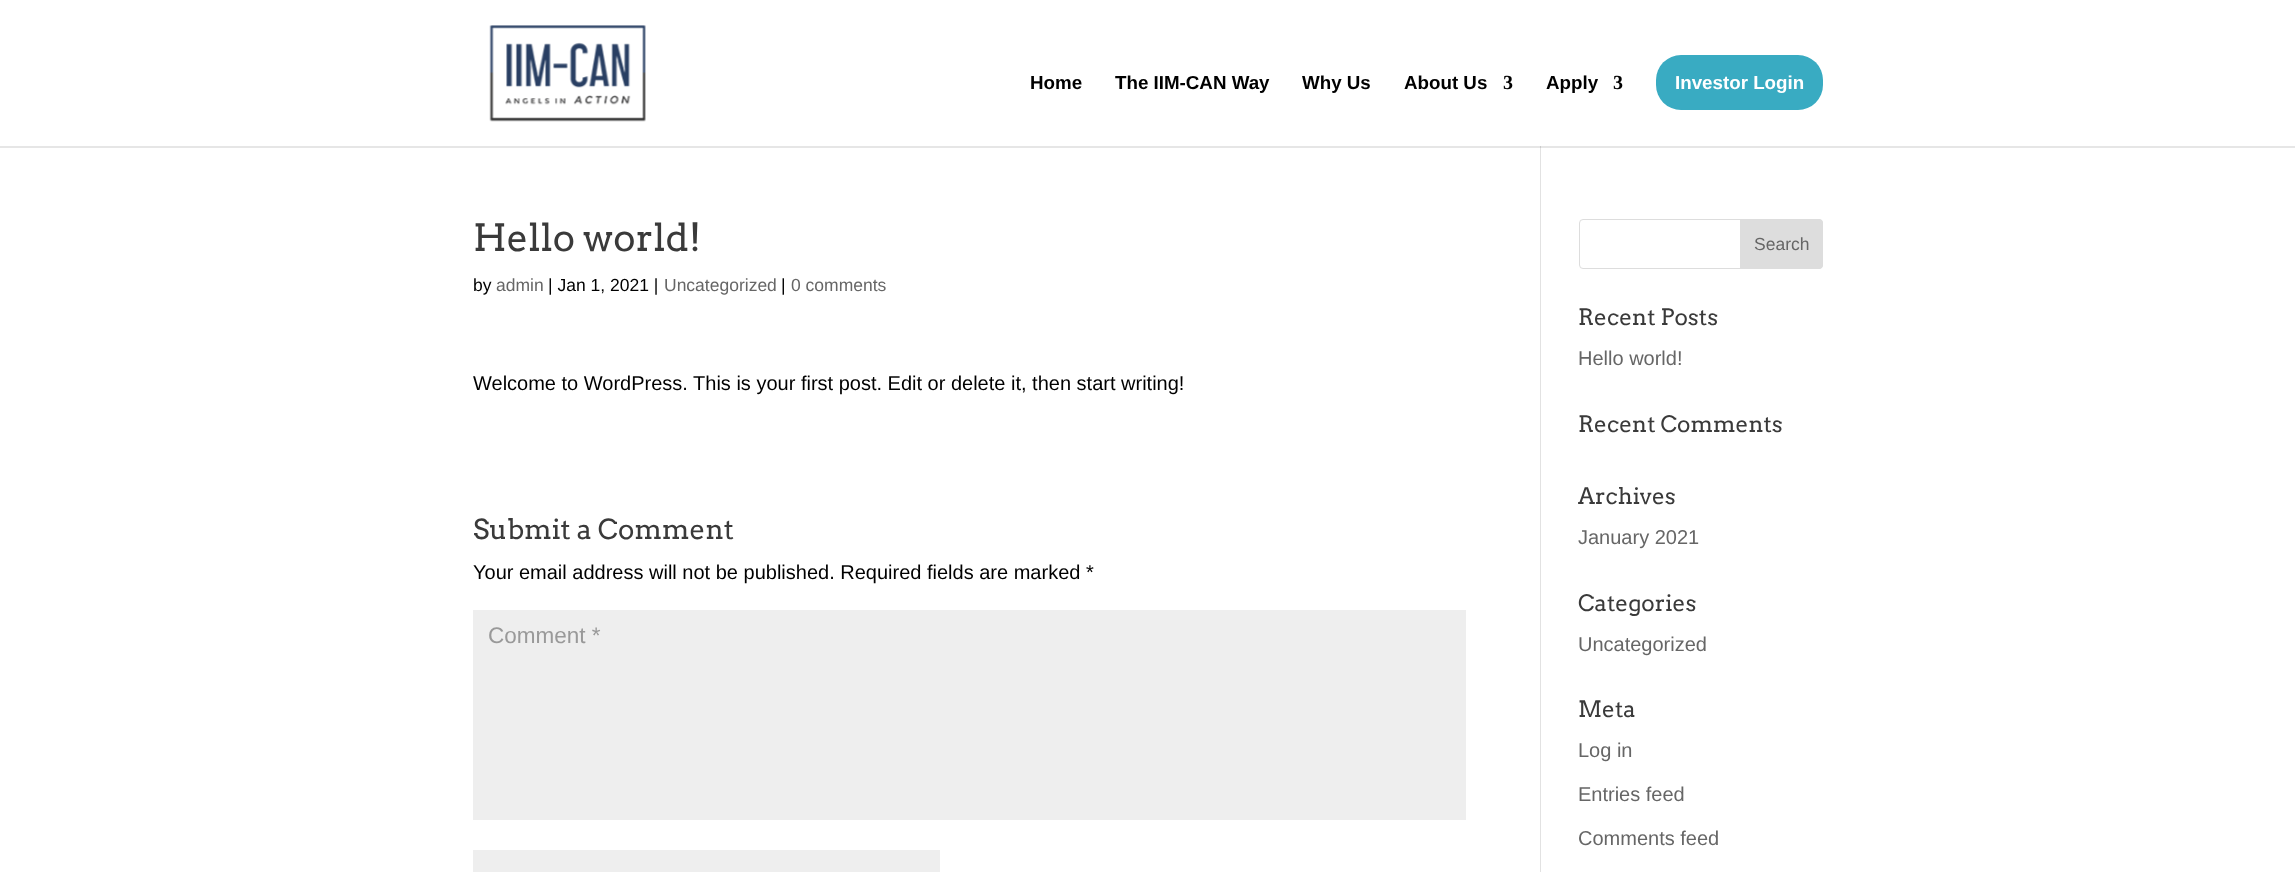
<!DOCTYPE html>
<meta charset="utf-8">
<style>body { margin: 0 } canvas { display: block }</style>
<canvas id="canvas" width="2295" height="872"></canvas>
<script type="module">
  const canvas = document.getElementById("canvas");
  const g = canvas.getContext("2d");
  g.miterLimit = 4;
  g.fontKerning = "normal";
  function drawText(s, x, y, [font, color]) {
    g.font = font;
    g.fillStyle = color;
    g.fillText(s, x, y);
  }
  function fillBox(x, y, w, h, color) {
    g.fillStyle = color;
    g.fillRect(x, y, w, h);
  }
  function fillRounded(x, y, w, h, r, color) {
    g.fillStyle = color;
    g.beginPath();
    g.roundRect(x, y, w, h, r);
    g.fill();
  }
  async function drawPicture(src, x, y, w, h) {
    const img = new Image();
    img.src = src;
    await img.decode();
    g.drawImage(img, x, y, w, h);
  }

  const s1 = ["bold 18.75px Liberation Sans", "#000000"];
  const s2 = ["bold 20px Liberation Serif", "#000000"];
  const s3 = ["bold 18.75px Liberation Sans", "#FFFFFF"];
  const s4 = ["37.5px Arvo", "#3A3A3A"];
  const s5 = ["17.5px Liberation Sans", "#000000"];
  const s6 = ["17.5px Liberation Sans", "#666666"];
  const s7 = ["20px Liberation Sans", "#000000"];
  const s8 = ["27.5px Arvo", "#3A3A3A"];
  const s9 = ["22.5px Liberation Sans", "#999999"];
  const s10 = ["22.5px Arvo", "#3A3A3A"];
  const s11 = ["20px Liberation Sans", "#666666"];

  fillBox(0, 0, 2295, 872, "#FFFFFF");
  fillBox(0, 146, 2295, 2, "#E6E6E6");
  await drawPicture("pic1.png", 489, 25, 157, 97);
  drawText("Home", 1030, 89, s1);
  drawText("The IIM-CAN Way", 1115, 89, s1);
  drawText("Why Us", 1302, 89, s1);
  drawText("About Us", 1404, 89, s1);
  drawText("3", 1503, 89, s2);
  drawText("Apply", 1546, 89, s1);
  drawText("3", 1613, 89, s2);
  fillRounded(1656, 55, 167, 55, 25, "#39ABC2");
  drawText("Investor Login", 1675, 89, s3);
  fillBox(1540, 146, 1, 726, "#E2E2E2");
  fillBox(1540, 146, 1, 2, "#CBCBCB");
  drawText("Hello world!", 473, 251, s4);
  drawText("by", 473, 291, s5);
  drawText("admin", 496, 291, s6);
  drawText("| Jan 1, 2021 |", 548, 291, s5);
  drawText("Uncategorized", 664, 291, s6);
  drawText("|", 781, 291, s5);
  drawText("0 comments", 791, 291, s6);
  drawText("Welcome to WordPress. This is your first post. Edit or delete it, then start writing!", 473, 390, s7);
  drawText("Submit a Comment", 473, 539, s8);
  drawText("Your email address will not be published. Required fields are marked *", 473, 579, s7);
  fillBox(473, 610, 993, 210, "#EEEEEE");
  drawText("Comment *", 488, 643, s9);
  fillBox(473, 850, 467, 22, "#EEEEEE");
  g.beginPath();
  g.roundRect(1579.5, 219.5, 243, 49, 3.5);
  g.strokeStyle = "#DDDDDD";
  g.stroke();
  g.fillStyle = "#DDDDDD";
  g.beginPath();
  g.roundRect(1740.5, 219.5, 82, 49, [0, 3.5, 3.5, 0]);
  g.fill();
  g.stroke();
  drawText("Search", 1754, 250, s6);
  drawText("Recent Posts", 1578, 325, s10);
  drawText("Hello world!", 1578, 365, s11);
  drawText("Recent Comments", 1578, 432, s10);
  drawText("Archives", 1578, 504, s10);
  drawText("January 2021", 1578, 544, s11);
  drawText("Categories", 1578, 611, s10);
  drawText("Uncategorized", 1578, 651, s11);
  drawText("Meta", 1578, 717, s10);
  drawText("Log in", 1578, 757, s11);
  drawText("Entries feed", 1578, 801, s11);
  drawText("Comments feed", 1578, 845, s11);
</script>
